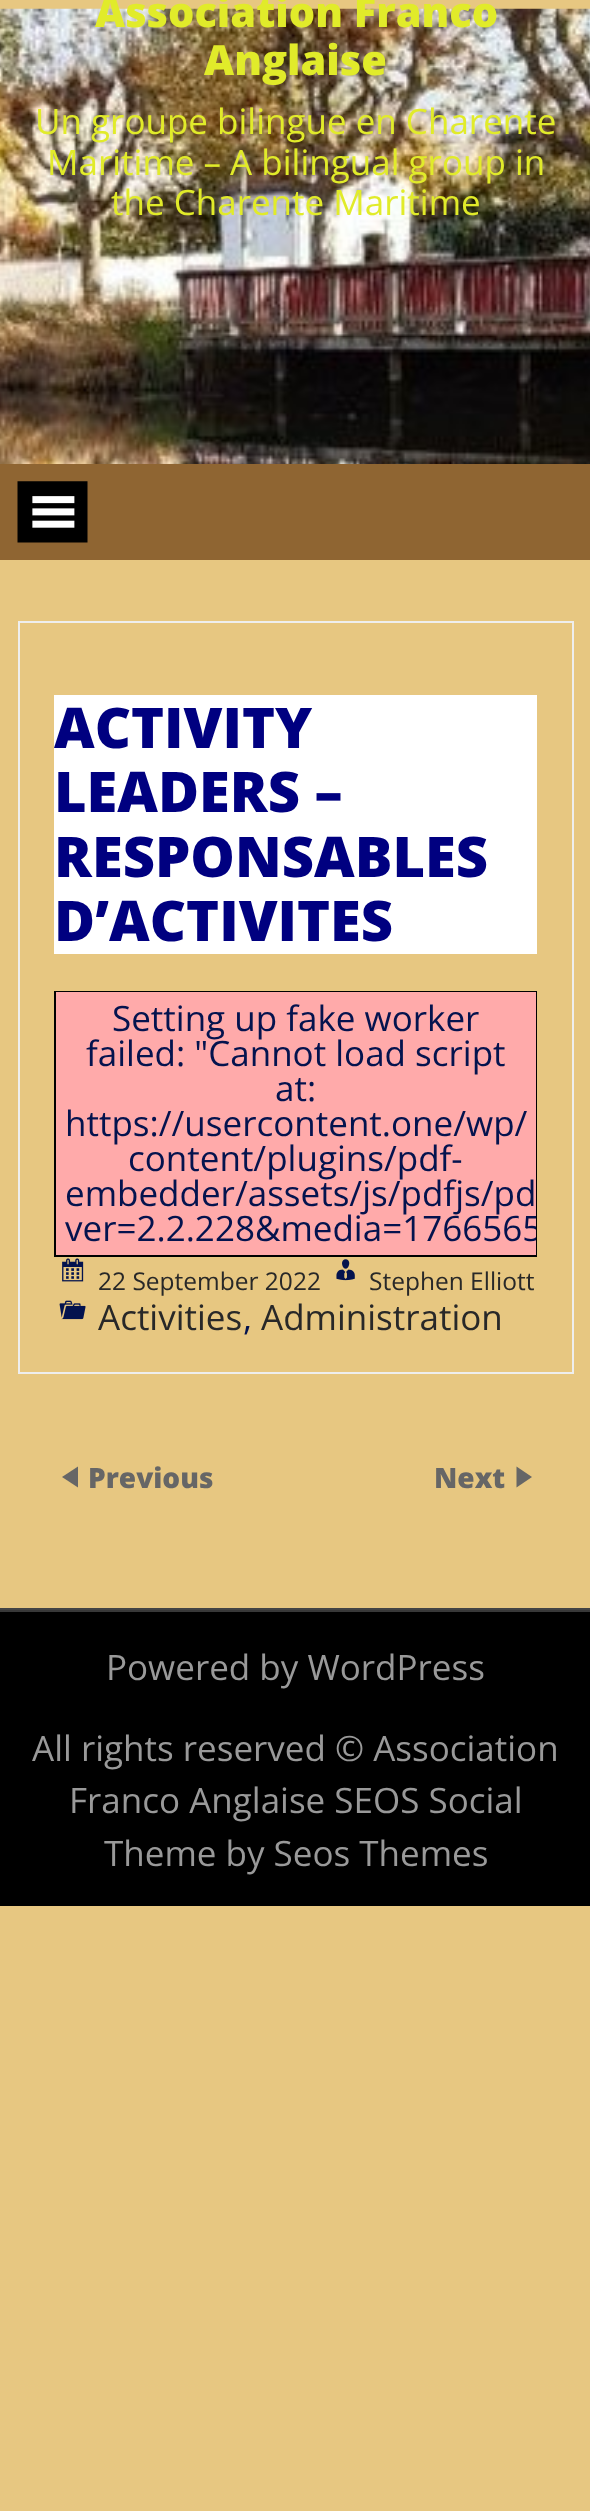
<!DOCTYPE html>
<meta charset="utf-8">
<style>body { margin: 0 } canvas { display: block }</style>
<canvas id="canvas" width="590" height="2511"></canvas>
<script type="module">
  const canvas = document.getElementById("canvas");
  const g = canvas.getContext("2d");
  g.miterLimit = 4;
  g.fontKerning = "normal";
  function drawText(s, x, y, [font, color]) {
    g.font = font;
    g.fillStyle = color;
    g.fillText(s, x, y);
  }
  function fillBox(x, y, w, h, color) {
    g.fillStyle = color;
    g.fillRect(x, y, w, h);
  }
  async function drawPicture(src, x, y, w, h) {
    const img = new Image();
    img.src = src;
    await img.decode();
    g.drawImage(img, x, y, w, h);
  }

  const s1 = ["800 41.5px Open Sans", "#E1EB2A"];
  const s2 = ["35px Open Sans", "#E1EB2A"];
  const s3 = ["800 56px Open Sans", "#000080"];
  const s4 = ["35px Open Sans", "#04134E"];
  const s5 = ["24.5px Open Sans", "#282828"];
  const s6 = ["35px Open Sans", "#282828"];
  const s7 = ["800 28px Open Sans", "#666666"];
  const s8 = ["35px Open Sans", "#999999"];

  fillBox(0, 0, 590, 2511, "#E7C781");
  await drawPicture("pic1.png", 0, 8, 590, 456);
  drawText("Association Franco", 95, 27, s1);
  drawText("Anglaise", 204, 75, s1);
  drawText("Un groupe bilingue en Charente", 35, 134, s2);
  drawText("Maritime – A bilingual group in", 47, 175, s2);
  drawText("the Charente Maritime", 111, 215, s2);
  fillBox(0, 464, 590, 96, "#8F6532");
  await drawPicture("pic2.png", 17, 481, 71, 62);
  g.strokeStyle = "#EEEEEE";
  g.lineWidth = 2;
  g.strokeRect(19, 622, 554, 751);
  fillBox(54, 695, 483, 259, "#FFFFFF");
  drawText("ACTIVITY", 54, 748, s3);
  drawText("LEADERS –", 54, 812, s3);
  drawText("RESPONSABLES", 54, 877, s3);
  drawText("D’ACTIVITES", 54, 941, s3);
  g.strokeStyle = "#000000";
  g.strokeRect(55, 992, 481, 264);
  fillBox(56, 992, 480, 263, "#FFAAAA");
  drawText("Setting up fake worker", 112, 1031, s4);
  drawText("failed: \"Cannot load script", 86, 1066, s4);
  drawText("at:", 275, 1101, s4);
  drawText("https://usercontent.one/wp/", 65, 1136, s4);
  drawText("content/plugins/pdf-", 128, 1171, s4);
  drawText("embedder/assets/js/pdfjs/pd", 65, 1206, s4);
  g.save();
  g.beginPath();
  g.rect(56, 992, 480, 263);
  g.clip();
  drawText("ver=2.2.228&media=1766565", 65, 1241, s4);
  g.restore();
  await drawPicture("pic3.png", 62, 1258, 22, 24);
  drawText("22 September 2022", 98, 1290, s5);
  await drawPicture("pic4.png", 336, 1259, 19, 22);
  drawText("Stephen Elliott", 369, 1290, s5);
  await drawPicture("pic5.png", 59, 1300, 27, 20);
  drawText("Activities", 98, 1330, s6);
  drawText(",", 243, 1330, s4);
  drawText("Administration", 261, 1330, s6);
  g.fillStyle = "#666666";
  g.beginPath();
  g.moveTo(78, 1487.5);
  g.lineTo(62, 1477);
  g.lineTo(78, 1466.5);
  g.closePath();
  g.fill();
  drawText("Previous", 88, 1488, s7);
  drawText("Next", 434, 1488, s7);
  g.beginPath();
  g.moveTo(516.5, 1466.5);
  g.lineTo(532, 1477);
  g.lineTo(516.5, 1487.5);
  g.closePath();
  g.fill();
  fillBox(0, 1608, 590, 2, "#444444");
  fillBox(0, 1610, 590, 2, "#383838");
  fillBox(0, 1612, 590, 294, "#000000");
  drawText("Powered by WordPress", 106, 1680, s8);
  drawText("All rights reserved © Association", 32, 1761, s8);
  drawText("Franco Anglaise SEOS Social", 69, 1813, s8);
  drawText("Theme by Seos Themes", 104, 1866, s8);
</script>
